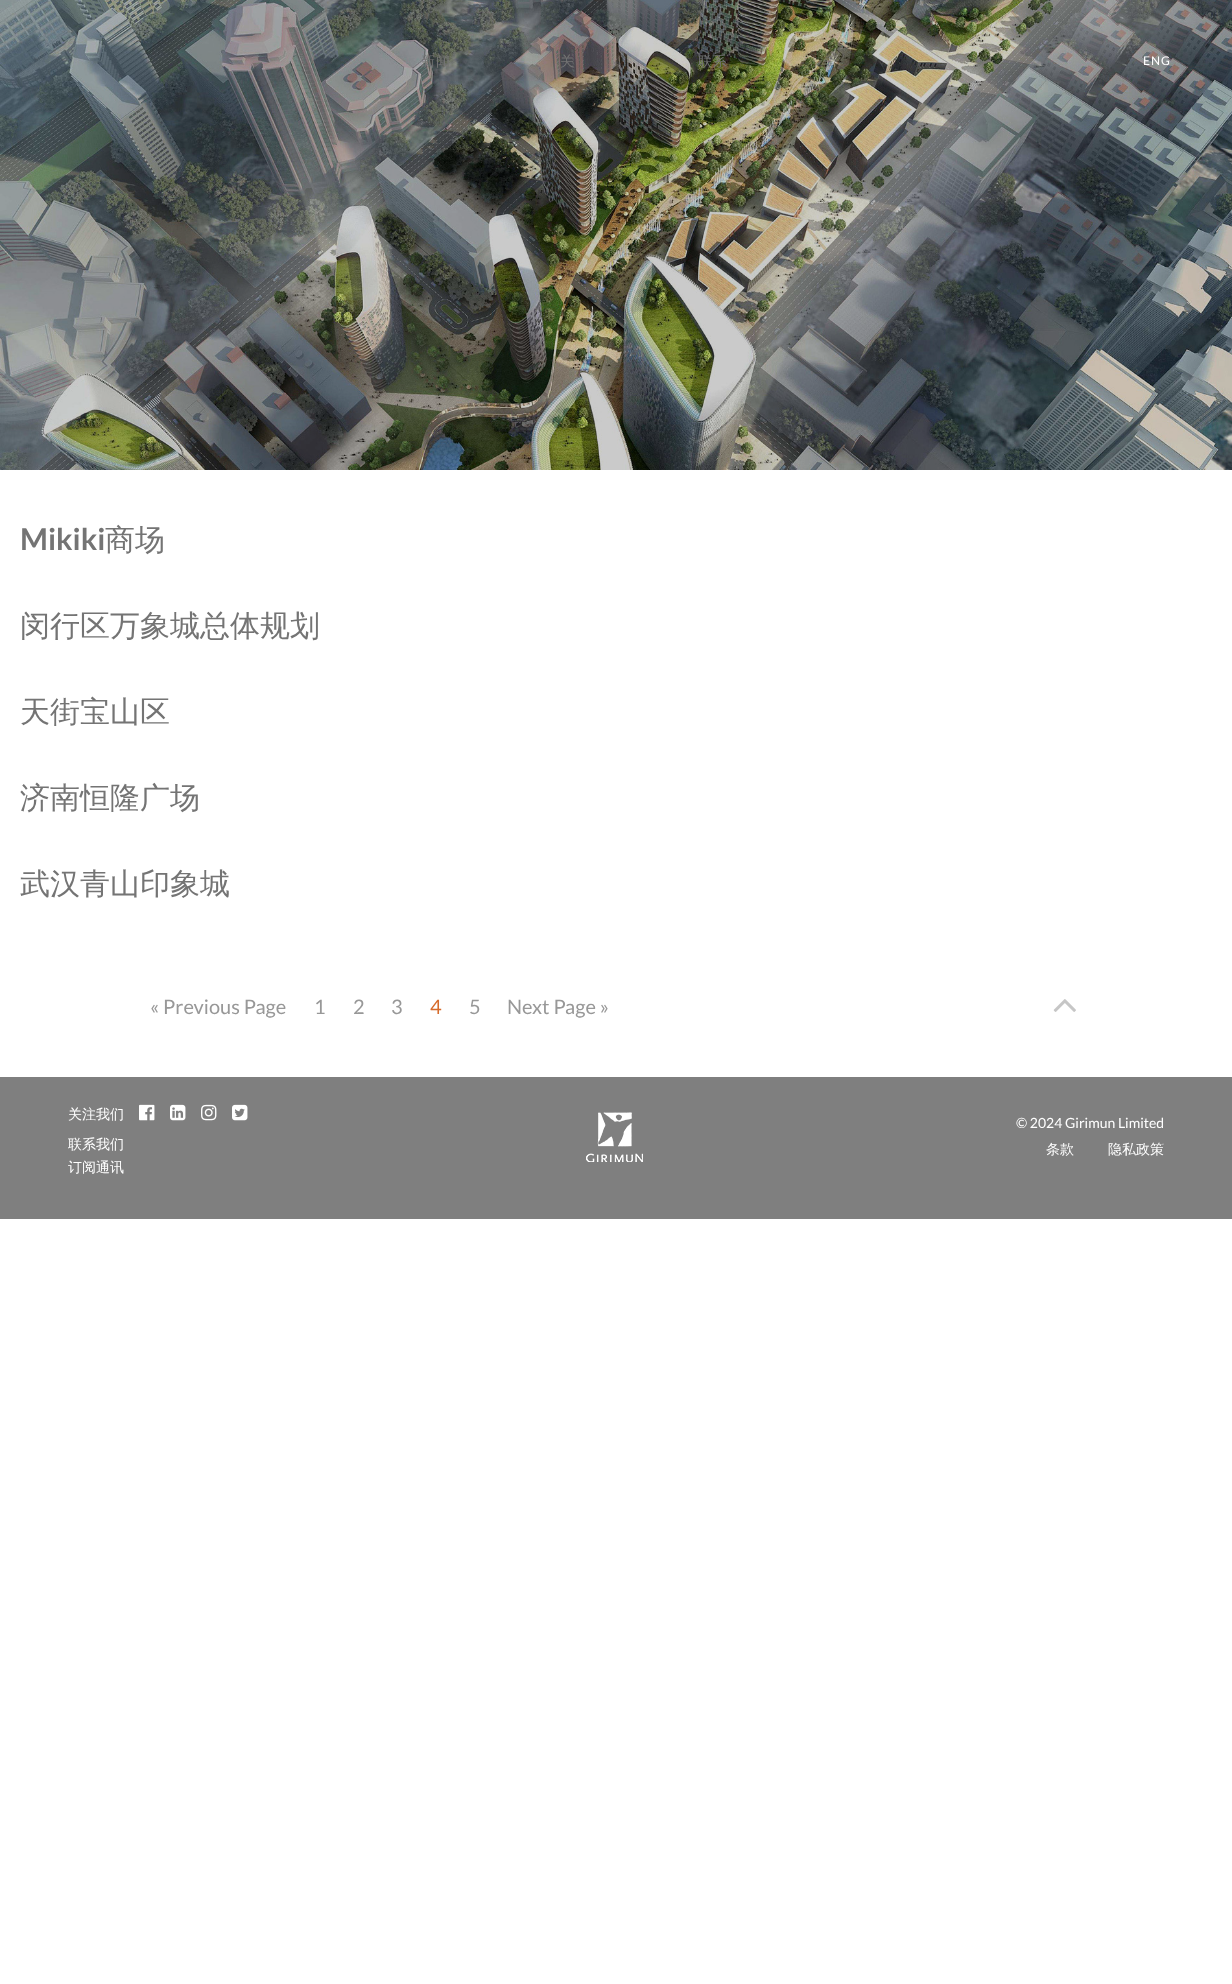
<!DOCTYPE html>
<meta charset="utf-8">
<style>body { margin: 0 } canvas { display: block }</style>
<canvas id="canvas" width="1232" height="1984"></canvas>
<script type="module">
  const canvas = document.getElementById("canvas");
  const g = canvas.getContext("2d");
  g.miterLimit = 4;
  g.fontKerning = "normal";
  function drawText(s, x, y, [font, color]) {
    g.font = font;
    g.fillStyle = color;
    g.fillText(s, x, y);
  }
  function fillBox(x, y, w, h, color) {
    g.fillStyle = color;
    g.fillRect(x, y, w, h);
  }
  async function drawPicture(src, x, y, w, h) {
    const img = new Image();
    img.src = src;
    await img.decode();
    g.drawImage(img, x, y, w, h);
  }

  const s1 = ["500 14px WenQuanYi Zen Hei", "#747474"];
  const s2 = ["12px Lato", "#FFFFFF"];
  const s3 = ["bold 30px Lato", "#747474"];
  const s4 = ["500 30px WenQuanYi Zen Hei", "#747474"];
  const s5 = ["20px Lato", "#989898"];
  const s6 = ["20px Lato", "#D76B2B"];
  const s7 = ["500 14px WenQuanYi Zen Hei", "#FFFFFF"];
  const s8 = ["14px Lato", "#FFFFFF"];

  fillBox(0, 0, 1232, 1984, "#FFFFFF");
  await drawPicture("pic1.png", 0, 0, 1232, 470);
  g.letterSpacing = "1px";
  drawText("新闻", 421, 66, s1);
  drawText("关", 560, 66, s1);
  drawText("联系", 698, 66, s1);
  drawText("ENG", 1143, 65, s2);
  g.letterSpacing = "0px";
  drawText("Mikiki", 20, 550, s3);
  drawText("商场", 105, 550, s4);
  drawText("闵行区万象城总体规划", 20, 636, s4);
  drawText("天街宝山区", 20, 722, s4);
  drawText("济南恒隆广场", 20, 808, s4);
  drawText("武汉青山印象城", 20, 894, s4);
  drawText("« Previous Page", 150, 1014, s5);
  drawText("1", 314, 1014, s5);
  drawText("2", 353, 1014, s5);
  drawText("3", 391, 1014, s5);
  drawText("4", 430, 1014, s6);
  drawText("5", 469, 1014, s5);
  drawText("Next Page »", 507, 1014, s5);
  await drawPicture("pic2.png", 1053, 999, 23, 13);
  fillBox(0, 1077, 1232, 142, "#7F7F7F");
  drawText("关注我们", 68, 1119, s7);
  await drawPicture("pic3.png", 139, 1104, 16, 17);
  await drawPicture("pic4.png", 170, 1104, 16, 17);
  await drawPicture("pic5.png", 201, 1104, 16, 17);
  await drawPicture("pic6.png", 232, 1104, 16, 17);
  drawText("联系我们", 68, 1149, s7);
  drawText("订阅通讯", 68, 1172, s7);
  await drawPicture("pic7.png", 586, 1112, 57, 50);
  drawText("© 2024 Girimun Limited", 1016, 1128, s8);
  drawText("条款", 1046, 1154, s7);
  drawText("隐私政策", 1108, 1154, s7);
</script>
